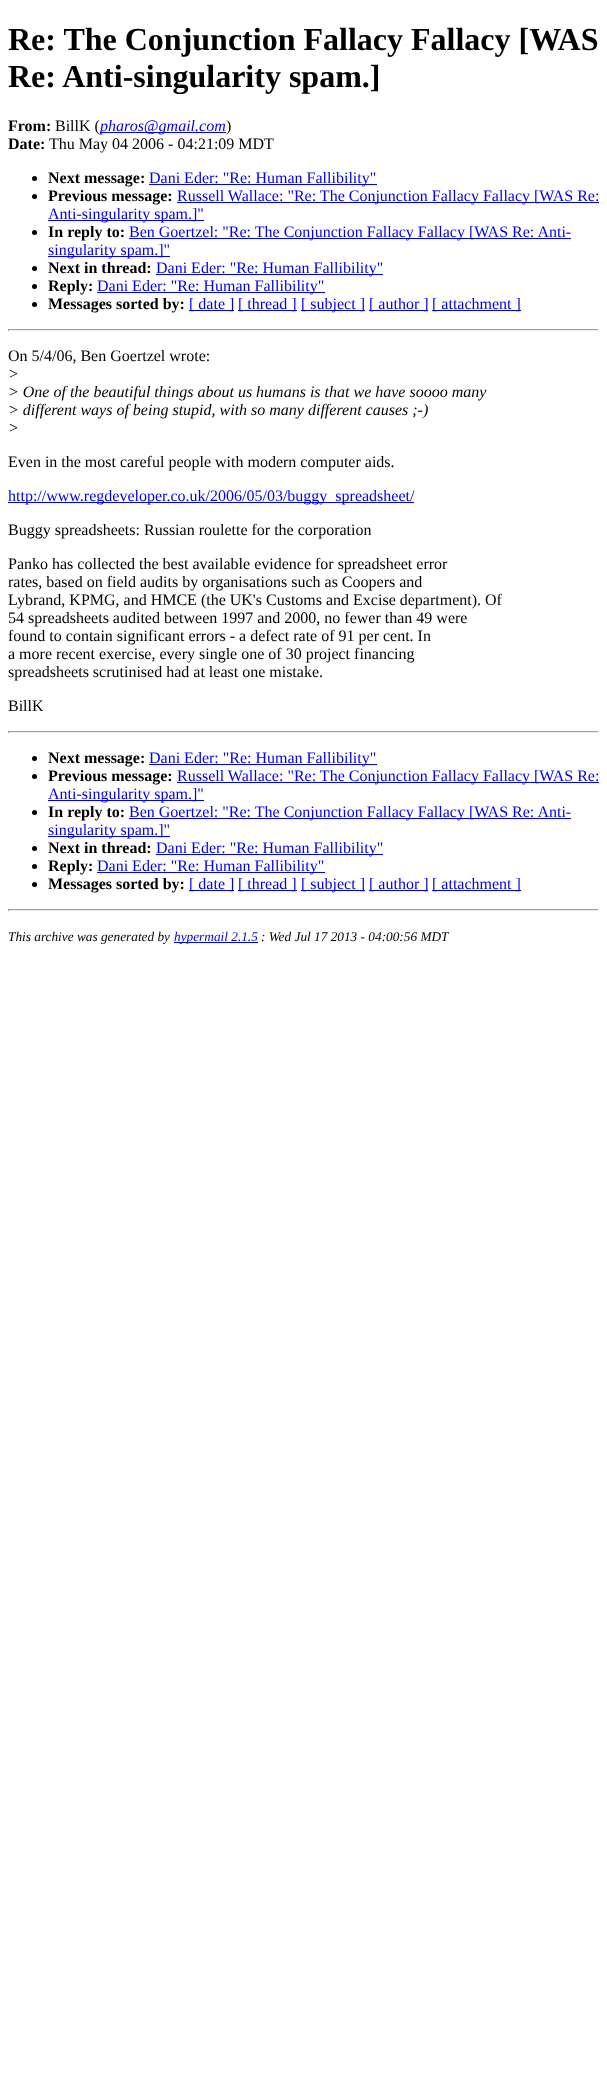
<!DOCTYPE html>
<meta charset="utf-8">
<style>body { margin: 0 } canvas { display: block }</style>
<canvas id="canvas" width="607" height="2089"></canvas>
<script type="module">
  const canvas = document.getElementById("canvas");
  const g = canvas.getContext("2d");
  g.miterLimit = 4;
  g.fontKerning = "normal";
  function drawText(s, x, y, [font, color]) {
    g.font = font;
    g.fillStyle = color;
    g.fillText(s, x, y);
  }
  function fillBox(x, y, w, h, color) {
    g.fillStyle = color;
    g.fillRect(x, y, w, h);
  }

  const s1 = ["bold 32px Liberation Serif", "#000000"];
  const s2 = ["bold 16px Liberation Serif", "#000000"];
  const s3 = ["16px Liberation Serif", "#000000"];
  const s4 = ["italic 16px Liberation Serif", "#0000EE"];
  const s5 = ["16px Liberation Serif", "#0000EE"];
  const s6 = ["italic 16px Liberation Serif", "#000000"];
  const s7 = ["italic 13.3px Liberation Serif", "#000000"];
  const s8 = ["italic 13.3px Liberation Serif", "#0000EE"];

  fillBox(0, 0, 607, 2089, "#FFFFFF");
  drawText("Re: The Conjunction Fallacy Fallacy [WAS", 8, 50, s1);
  drawText("Re: Anti-singularity spam.]", 8, 87, s1);
  drawText("From:", 8, 131, s2);
  drawText("BillK (", 55, 131, s3);
  fillBox(100, 132, 126, 1, "#0000EE");
  drawText("pharos@gmail.com", 100, 131, s4);
  drawText(")", 226, 131, s3);
  drawText("Date:", 8, 149, s2);
  drawText("Thu May 04 2006 - 04:21:09 MDT", 49, 149, s3);
  g.beginPath();
  g.arc(34.5, 178.5, 2.5, 0, Math.PI * 2);
  g.fill();
  drawText("Next message:", 48, 183, s2);
  fillBox(149, 184, 228, 1, "#0000EE");
  drawText("Dani Eder: \"Re: Human Fallibility\"", 149, 183, s5);
  g.fillStyle = "#000000";
  g.beginPath();
  g.arc(34.5, 196.5, 2.5, 0, Math.PI * 2);
  g.fill();
  drawText("Previous message:", 48, 201, s2);
  fillBox(177, 202, 422, 1, "#0000EE");
  drawText("Russell Wallace: \"Re: The Conjunction Fallacy Fallacy [WAS Re:", 177, 201, s5);
  fillBox(48, 220, 156, 1, "#0000EE");
  drawText("Anti-singularity spam.]\"", 48, 219, s5);
  g.fillStyle = "#000000";
  g.beginPath();
  g.arc(34.5, 232.5, 2.5, 0, Math.PI * 2);
  g.fill();
  drawText("In reply to:", 48, 237, s2);
  fillBox(129, 238, 442, 1, "#0000EE");
  drawText("Ben Goertzel: \"Re: The Conjunction Fallacy Fallacy [WAS Re: Anti-", 129, 237, s5);
  fillBox(48, 256, 122, 1, "#0000EE");
  drawText("singularity spam.]\"", 48, 255, s5);
  g.fillStyle = "#000000";
  g.beginPath();
  g.arc(34.5, 268.5, 2.5, 0, Math.PI * 2);
  g.fill();
  drawText("Next in thread:", 48, 273, s2);
  fillBox(156, 274, 227, 1, "#0000EE");
  drawText("Dani Eder: \"Re: Human Fallibility\"", 156, 273, s5);
  g.fillStyle = "#000000";
  g.beginPath();
  g.arc(34.5, 286.5, 2.5, 0, Math.PI * 2);
  g.fill();
  drawText("Reply:", 48, 291, s2);
  fillBox(97, 292, 228, 1, "#0000EE");
  drawText("Dani Eder: \"Re: Human Fallibility\"", 97, 291, s5);
  g.fillStyle = "#000000";
  g.beginPath();
  g.arc(34.5, 304.5, 2.5, 0, Math.PI * 2);
  g.fill();
  drawText("Messages sorted by:", 48, 309, s2);
  fillBox(189, 310, 45, 1, "#0000EE");
  drawText("[ date ]", 189, 309, s5);
  fillBox(238, 310, 59, 1, "#0000EE");
  drawText("[ thread ]", 238, 309, s5);
  fillBox(301, 310, 64, 1, "#0000EE");
  drawText("[ subject ]", 301, 309, s5);
  fillBox(369, 310, 59, 1, "#0000EE");
  drawText("[ author ]", 369, 309, s5);
  fillBox(432, 310, 89, 1, "#0000EE");
  drawText("[ attachment ]", 432, 309, s5);
  fillBox(8, 329, 591, 1, "#9F9F9F");
  fillBox(598, 329, 1, 2, "#EEEEEE");
  fillBox(8, 330, 591, 1, "#EEEEEE");
  fillBox(8, 329, 1, 2, "#9F9F9F");
  drawText("On 5/4/06, Ben Goertzel wrote:", 8, 361, s3);
  drawText(">", 8, 379, s6);
  drawText("> One of the beautiful things about us humans is that we have soooo many", 8, 397, s6);
  drawText("> different ways of being stupid, with so many different causes ;-)", 8, 415, s6);
  drawText(">", 8, 433, s6);
  drawText("Even in the most careful people with modern computer aids.", 8, 467, s3);
  fillBox(8, 502, 406, 1, "#0000EE");
  drawText("http://www.regdeveloper.co.uk/2006/05/03/buggy_spreadsheet/", 8, 501, s5);
  drawText("Buggy spreadsheets: Russian roulette for the corporation", 8, 535, s3);
  drawText("Panko has collected the best available evidence for spreadsheet error", 8, 569, s3);
  drawText("rates, based on field audits by organisations such as Coopers and", 8, 587, s3);
  drawText("Lybrand, KPMG, and HMCE (the UK's Customs and Excise department). Of", 8, 605, s3);
  drawText("54 spreadsheets audited between 1997 and 2000, no fewer than 49 were", 8, 623, s3);
  drawText("found to contain significant errors - a defect rate of 91 per cent. In", 8, 641, s3);
  drawText("a more recent exercise, every single one of 30 project financing", 8, 659, s3);
  drawText("spreadsheets scrutinised had at least one mistake.", 8, 677, s3);
  drawText("BillK", 8, 711, s3);
  fillBox(8, 731, 591, 1, "#9F9F9F");
  fillBox(598, 731, 1, 2, "#EEEEEE");
  fillBox(8, 732, 591, 1, "#EEEEEE");
  fillBox(8, 731, 1, 2, "#9F9F9F");
  g.fillStyle = "#000000";
  g.beginPath();
  g.arc(34.5, 758.5, 2.5, 0, Math.PI * 2);
  g.fill();
  drawText("Next message:", 48, 763, s2);
  fillBox(149, 764, 228, 1, "#0000EE");
  drawText("Dani Eder: \"Re: Human Fallibility\"", 149, 763, s5);
  g.fillStyle = "#000000";
  g.beginPath();
  g.arc(34.5, 776.5, 2.5, 0, Math.PI * 2);
  g.fill();
  drawText("Previous message:", 48, 781, s2);
  fillBox(177, 782, 422, 1, "#0000EE");
  drawText("Russell Wallace: \"Re: The Conjunction Fallacy Fallacy [WAS Re:", 177, 781, s5);
  fillBox(48, 800, 156, 1, "#0000EE");
  drawText("Anti-singularity spam.]\"", 48, 799, s5);
  g.fillStyle = "#000000";
  g.beginPath();
  g.arc(34.5, 812.5, 2.5, 0, Math.PI * 2);
  g.fill();
  drawText("In reply to:", 48, 817, s2);
  fillBox(129, 818, 442, 1, "#0000EE");
  drawText("Ben Goertzel: \"Re: The Conjunction Fallacy Fallacy [WAS Re: Anti-", 129, 817, s5);
  fillBox(48, 836, 122, 1, "#0000EE");
  drawText("singularity spam.]\"", 48, 835, s5);
  g.fillStyle = "#000000";
  g.beginPath();
  g.arc(34.5, 848.5, 2.5, 0, Math.PI * 2);
  g.fill();
  drawText("Next in thread:", 48, 853, s2);
  fillBox(156, 854, 227, 1, "#0000EE");
  drawText("Dani Eder: \"Re: Human Fallibility\"", 156, 853, s5);
  g.fillStyle = "#000000";
  g.beginPath();
  g.arc(34.5, 866.5, 2.5, 0, Math.PI * 2);
  g.fill();
  drawText("Reply:", 48, 871, s2);
  fillBox(97, 872, 228, 1, "#0000EE");
  drawText("Dani Eder: \"Re: Human Fallibility\"", 97, 871, s5);
  g.fillStyle = "#000000";
  g.beginPath();
  g.arc(34.5, 884.5, 2.5, 0, Math.PI * 2);
  g.fill();
  drawText("Messages sorted by:", 48, 889, s2);
  fillBox(189, 890, 45, 1, "#0000EE");
  drawText("[ date ]", 189, 889, s5);
  fillBox(238, 890, 59, 1, "#0000EE");
  drawText("[ thread ]", 238, 889, s5);
  fillBox(301, 890, 64, 1, "#0000EE");
  drawText("[ subject ]", 301, 889, s5);
  fillBox(369, 890, 59, 1, "#0000EE");
  drawText("[ author ]", 369, 889, s5);
  fillBox(432, 890, 89, 1, "#0000EE");
  drawText("[ attachment ]", 432, 889, s5);
  fillBox(8, 909, 591, 1, "#9F9F9F");
  fillBox(598, 909, 1, 2, "#EEEEEE");
  fillBox(8, 910, 591, 1, "#EEEEEE");
  fillBox(8, 909, 1, 2, "#9F9F9F");
  drawText("This archive was generated by", 8, 941, s7);
  fillBox(174, 942, 84, 1, "#0000EE");
  drawText("hypermail 2.1.5", 174, 941, s8);
  drawText(": Wed Jul 17 2013 - 04:00:56 MDT", 261, 941, s7);
</script>
